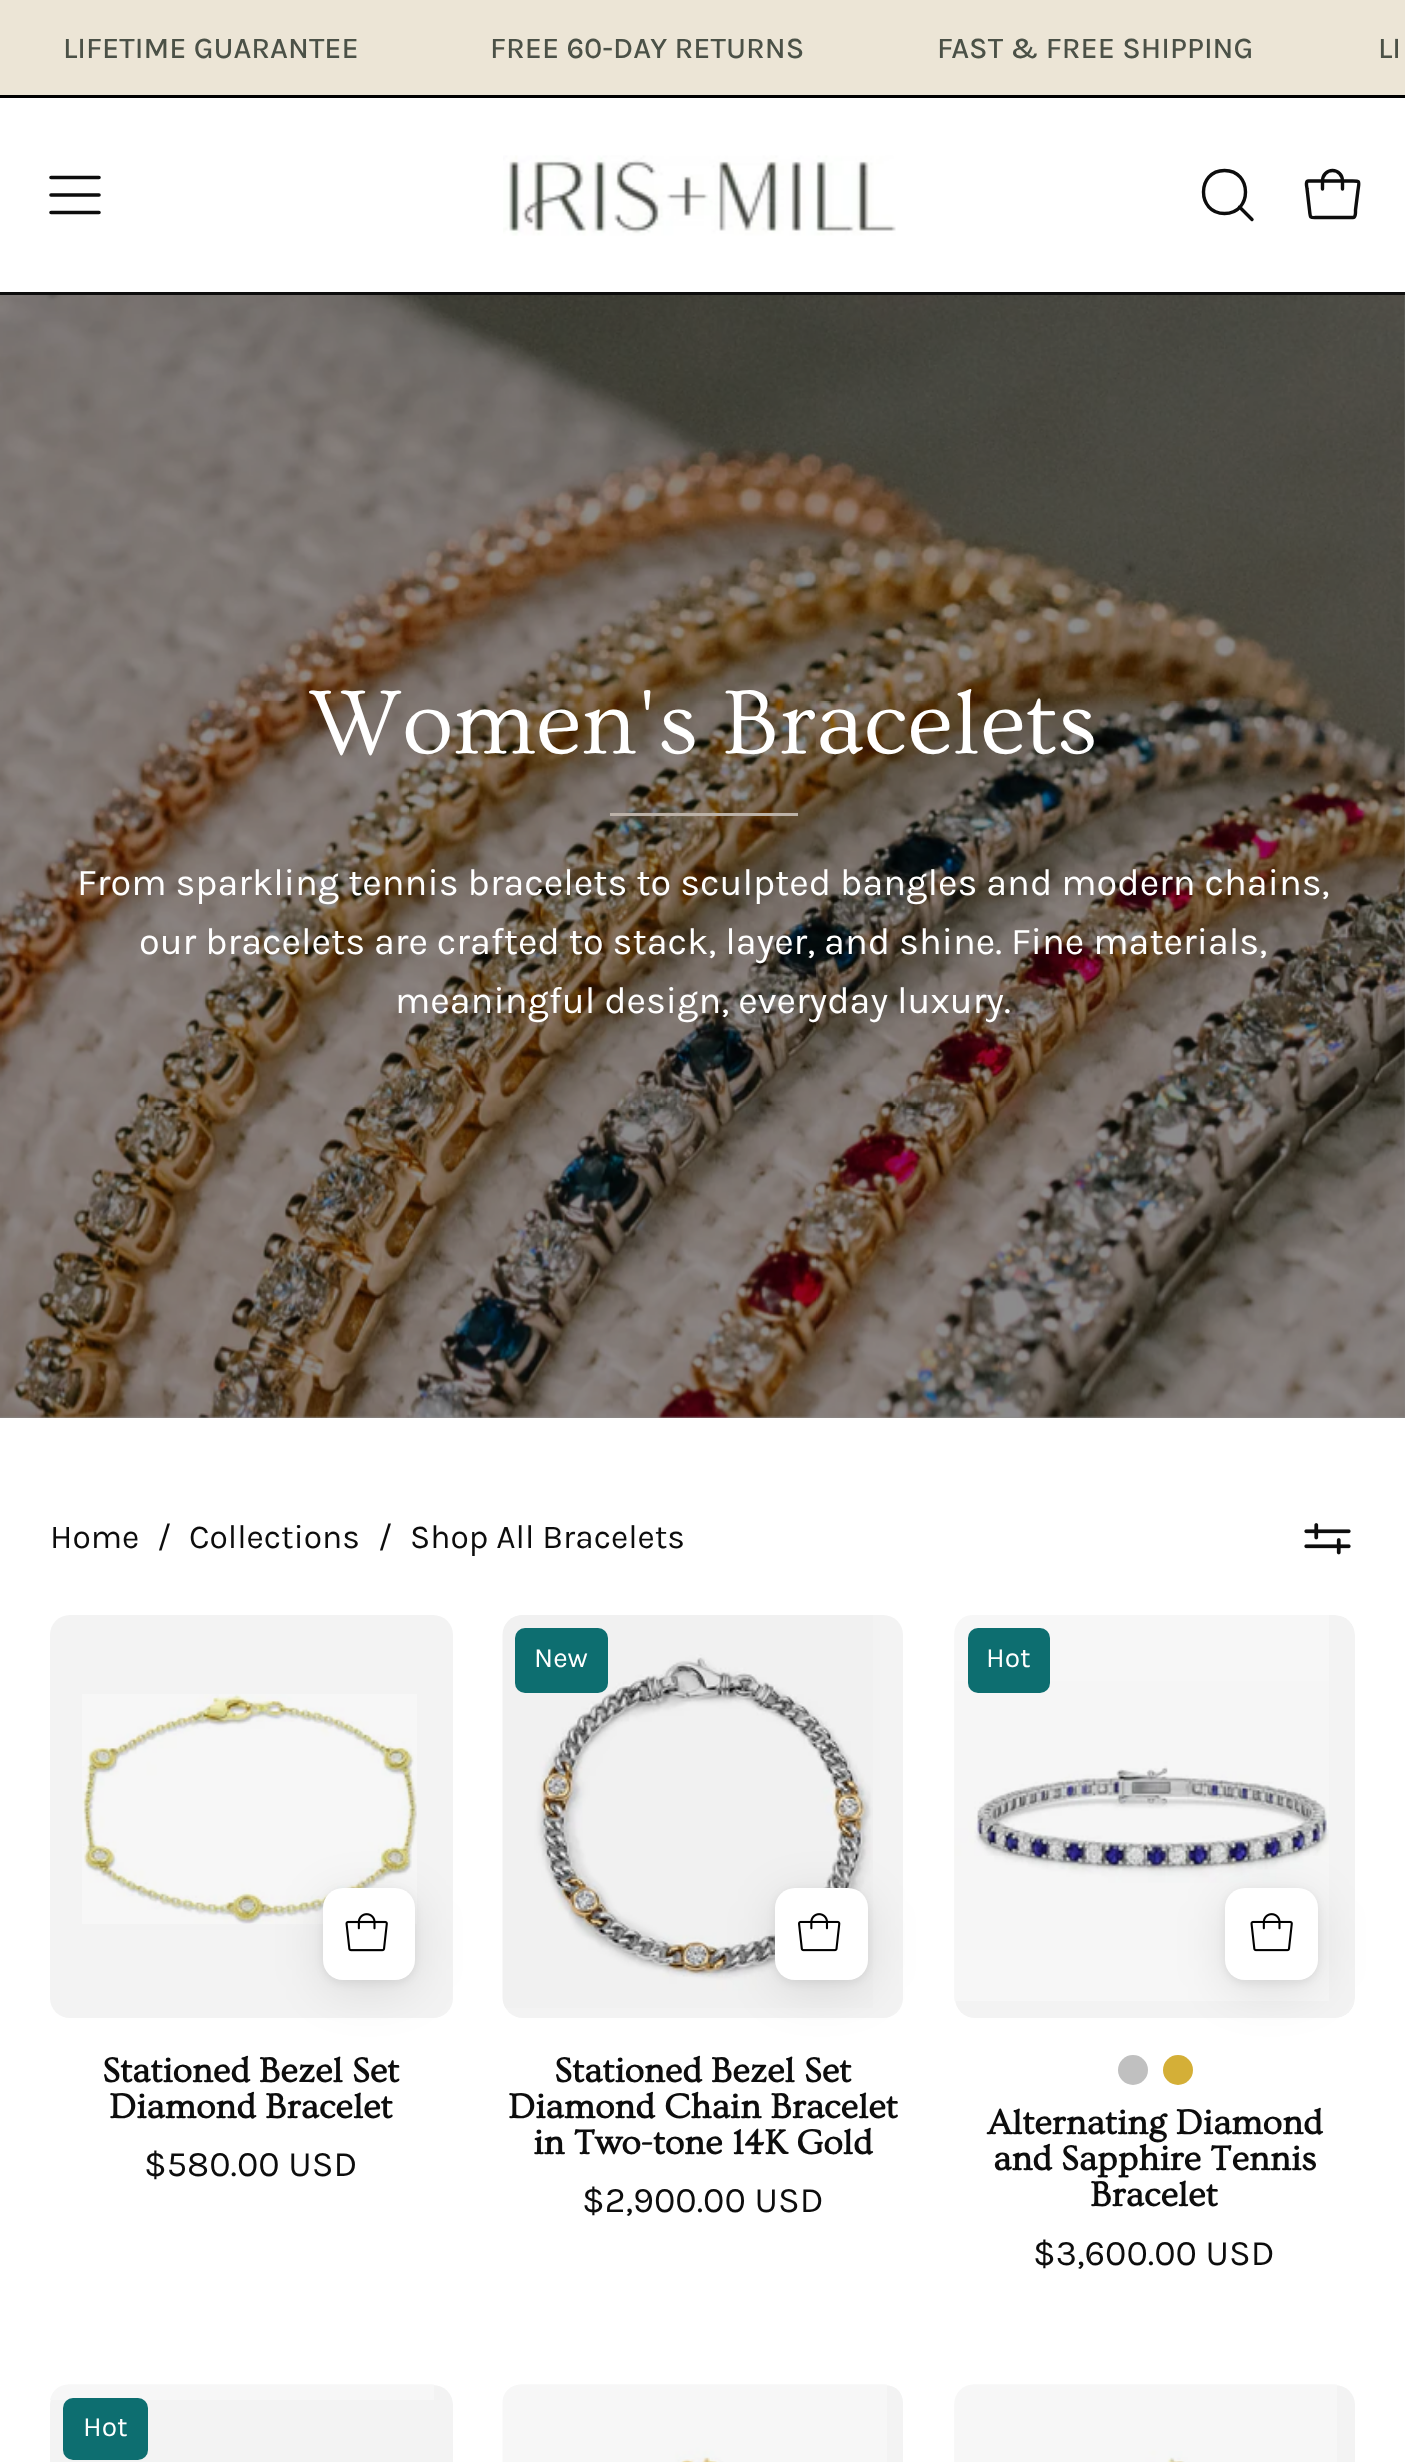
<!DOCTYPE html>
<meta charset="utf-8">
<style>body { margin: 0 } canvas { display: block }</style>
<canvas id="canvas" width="1405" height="2462"></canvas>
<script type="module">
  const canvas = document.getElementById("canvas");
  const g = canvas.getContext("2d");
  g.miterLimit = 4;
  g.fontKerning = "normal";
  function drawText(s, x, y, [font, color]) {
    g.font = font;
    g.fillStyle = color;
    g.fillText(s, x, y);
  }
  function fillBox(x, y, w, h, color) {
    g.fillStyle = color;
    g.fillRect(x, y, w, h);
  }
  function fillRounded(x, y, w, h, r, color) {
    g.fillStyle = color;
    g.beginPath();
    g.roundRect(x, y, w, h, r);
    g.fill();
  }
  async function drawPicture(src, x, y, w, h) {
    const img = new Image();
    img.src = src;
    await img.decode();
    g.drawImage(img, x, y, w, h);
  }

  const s1 = ["500 30px Karla", "#4B5147"];
  const s2 = ["94.5px Ovo", "#FFFFFF"];
  const s3 = ["37.8px Karla", "#FFFFFF"];
  const s4 = ["33.5px Karla", "#0D0D0D"];
  const s5 = ["bold 36px Ovo", "#0D0D0D"];
  const s6 = ["36px Karla", "#0D0D0D"];
  const s7 = ["28px Karla", "#FFFFFF"];

  fillBox(0, 0, 1405, 2462, "#FFFFFF");
  fillBox(0, 0, 1405, 95, "#ECE5D6");
  fillBox(0, 95, 1405, 3, "#000000");
  drawText("LIFETIME GUARANTEE", 63, 58, s1);
  drawText("FREE 60-DAY RETURNS", 490, 58, s1);
  drawText("FAST & FREE SHIPPING", 937, 58, s1);
  drawText("LI", 1378, 58, s1);
  g.beginPath();
  g.moveTo(51, 195);
  g.lineTo(99, 195);
  g.moveTo(51, 177.5);
  g.lineTo(99, 177.5);
  g.moveTo(51, 212.5);
  g.lineTo(99, 212.5);
  g.strokeStyle = "#0D0D0D";
  g.lineWidth = 3.6;
  g.lineCap = "round";
  g.lineJoin = "round";
  g.stroke();
  await drawPicture("pic1.png", 503, 155, 393, 81);
  g.beginPath();
  g.moveTo(1224.5, 213.5);
  g.bezierCurveTo(1252.5, 213.5, 1252.5, 170.5, 1224.5, 170.5);
  g.bezierCurveTo(1196.5, 170.5, 1196.5, 213.5, 1224.5, 213.5);
  g.closePath();
  g.moveTo(1239.5, 207);
  g.lineTo(1252, 219.5);
  g.lineWidth = 3.4;
  g.stroke();
  g.beginPath();
  g.moveTo(1353, 217.5);
  g.lineTo(1319, 217.5);
  g.bezierCurveTo(1309.5, 217.5, 1310.5, 219, 1309.5, 210);
  g.lineTo(1307, 188.5);
  g.bezierCurveTo(1307, 187.5, 1305, 181, 1308.5, 181);
  g.lineTo(1348.5, 181);
  g.bezierCurveTo(1362, 181, 1359, 179.5, 1357.5, 194);
  g.lineTo(1355.5, 210);
  g.bezierCurveTo(1355.5, 211, 1356, 217.5, 1353, 217.5);
  g.closePath();
  g.moveTo(1322.5, 189);
  g.lineTo(1322.5, 181);
  g.bezierCurveTo(1322.5, 175, 1327, 170.5, 1332.5, 170.5);
  g.bezierCurveTo(1338, 170.5, 1342.5, 175, 1342.5, 181);
  g.lineTo(1342.5, 189);
  g.stroke();
  fillBox(0, 292, 1405, 3, "#0D0D0D");
  fillBox(0, 295, 1405, 1123, "#8A8A8A");
  await drawPicture("pic2.png", 0, 295, 1405, 1123);
  drawText("Women's Bracelets", 308, 753, s2);
  fillBox(610, 813, 188, 3, "#BCB2A8");
  drawText("From sparkling tennis bracelets to sculpted bangles and modern chains,", 77, 895, s3);
  drawText("our bracelets are crafted to stack, layer, and shine. Fine materials,", 139, 954, s3);
  drawText("meaningful design, everyday luxury.", 395, 1013, s3);
  drawText("Home", 50, 1548, s4);
  drawText("/", 157, 1548, s4);
  drawText("Collections", 189, 1548, s4);
  drawText("/", 378, 1548, s4);
  drawText("Shop All Bracelets", 410, 1548, s4);
  await drawPicture("pic3.png", 1304, 1523, 47, 32);
  fillRounded(50, 1615, 403, 403, 20, "#F3F3F3");
  await drawPicture("pic4.png", 82, 1694, 335, 230);
  g.fillStyle = "rgba(0, 0, 0, 0.07)";
  g.filter = "blur(4px)";
  g.beginPath();
  g.roundRect(323, 1890, 92, 93, 20);
  g.fill();
  g.filter = "none";
  g.fillStyle = "rgba(0, 0, 0, 0.1)";
  g.filter = "blur(25px)";
  g.beginPath();
  g.roundRect(323, 1898, 92, 92, 20);
  g.fill();
  g.filter = "none";
  fillRounded(323, 1888, 92, 92, 20, "#FFFFFF");
  await drawPicture("pic5.png", 345, 1913, 43, 39);
  drawText("Stationed Bezel Set", 102, 2082, s5);
  drawText("Diamond Bracelet", 109, 2118, s5);
  drawText("$580.00 USD", 144, 2176, s6);
  fillRounded(503, 1615, 400, 403, 20, "#F3F3F3");
  await drawPicture("pic6.png", 502, 1615, 371, 393);
  fillRounded(515, 1628, 93, 65, 10, "#0D6E70");
  drawText("New", 534, 1667, s7);
  g.fillStyle = "rgba(0, 0, 0, 0.07)";
  g.filter = "blur(4px)";
  g.beginPath();
  g.roundRect(775, 1890, 93, 93, 20);
  g.fill();
  g.filter = "none";
  g.fillStyle = "rgba(0, 0, 0, 0.1)";
  g.filter = "blur(25px)";
  g.beginPath();
  g.roundRect(775, 1898, 93, 92, 20);
  g.fill();
  g.filter = "none";
  fillRounded(775, 1888, 93, 92, 20, "#FFFFFF");
  await drawPicture("pic7.png", 798, 1913, 43, 39);
  drawText("Stationed Bezel Set", 554, 2082, s5);
  drawText("Diamond Chain Bracelet", 508, 2118, s5);
  drawText("in Two-tone 14K Gold", 533, 2154, s5);
  drawText("$2,900.00 USD", 582, 2212, s6);
  g.save();
  g.beginPath();
  g.roundRect(953, 1615, 402, 403, 20);
  g.clip();
  fillRounded(955, 1615, 400, 403, 20, "#F3F3F3");
  g.restore();
  await drawPicture("pic8.png", 954, 1615, 375, 386);
  fillRounded(968, 1628, 82, 65, 10, "#0D6E70");
  drawText("Hot", 986, 1667, s7);
  g.fillStyle = "rgba(0, 0, 0, 0.07)";
  g.filter = "blur(4px)";
  g.beginPath();
  g.roundRect(1225, 1890, 93, 93, 20);
  g.fill();
  g.filter = "none";
  g.fillStyle = "rgba(0, 0, 0, 0.1)";
  g.filter = "blur(25px)";
  g.beginPath();
  g.roundRect(1225, 1898, 93, 92, 20);
  g.fill();
  g.filter = "none";
  fillRounded(1225, 1888, 93, 92, 20, "#FFFFFF");
  await drawPicture("pic9.png", 1250, 1913, 43, 39);
  g.fillStyle = "#C0C0C0";
  g.beginPath();
  g.arc(1133, 2070, 15, 0, Math.PI * 2);
  g.fill();
  g.fillStyle = "#D4AF37";
  g.beginPath();
  g.arc(1178, 2070, 15, 0, Math.PI * 2);
  g.fill();
  drawText("Alternating Diamond", 987, 2134, s5);
  drawText("and Sapphire Tennis", 993, 2170, s5);
  drawText("Bracelet", 1090, 2206, s5);
  drawText("$3,600.00 USD", 1033, 2265, s6);
  g.save();
  g.beginPath();
  g.roundRect(50, 2383, 403, 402, 20);
  g.clip();
  fillRounded(50, 2385, 403, 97, 20, "#F3F3F3");
  g.restore();
  await drawPicture("pic10.png", 50, 2384, 384, 16);
  fillRounded(63, 2398, 85, 62, 10, "#0D6E70");
  drawText("Hot", 83, 2436, s7);
  g.save();
  g.beginPath();
  g.roundRect(503, 2383, 400, 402, 20);
  g.clip();
  g.beginPath();
  g.roundRect(503, 2385, 402, 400, 20);
  g.clip();
  g.fillStyle = "#F3F3F3";
  g.beginPath();
  g.moveTo(523, 2385);
  g.lineTo(903, 2385);
  g.lineTo(903, 2462);
  g.bezierCurveTo(903, 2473, 894, 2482, 883, 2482);
  g.lineTo(523, 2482);
  g.bezierCurveTo(512, 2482, 503, 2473, 503, 2462);
  g.lineTo(503, 2405);
  g.bezierCurveTo(503, 2394, 512, 2385, 523, 2385);
  g.closePath();
  g.fill();
  g.restore();
  await drawPicture("pic11.png", 502, 2384, 385, 78);
  fillRounded(955, 2385, 400, 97, 20, "#F3F3F3");
  await drawPicture("pic12.png", 954, 2384, 383, 78);
</script>
